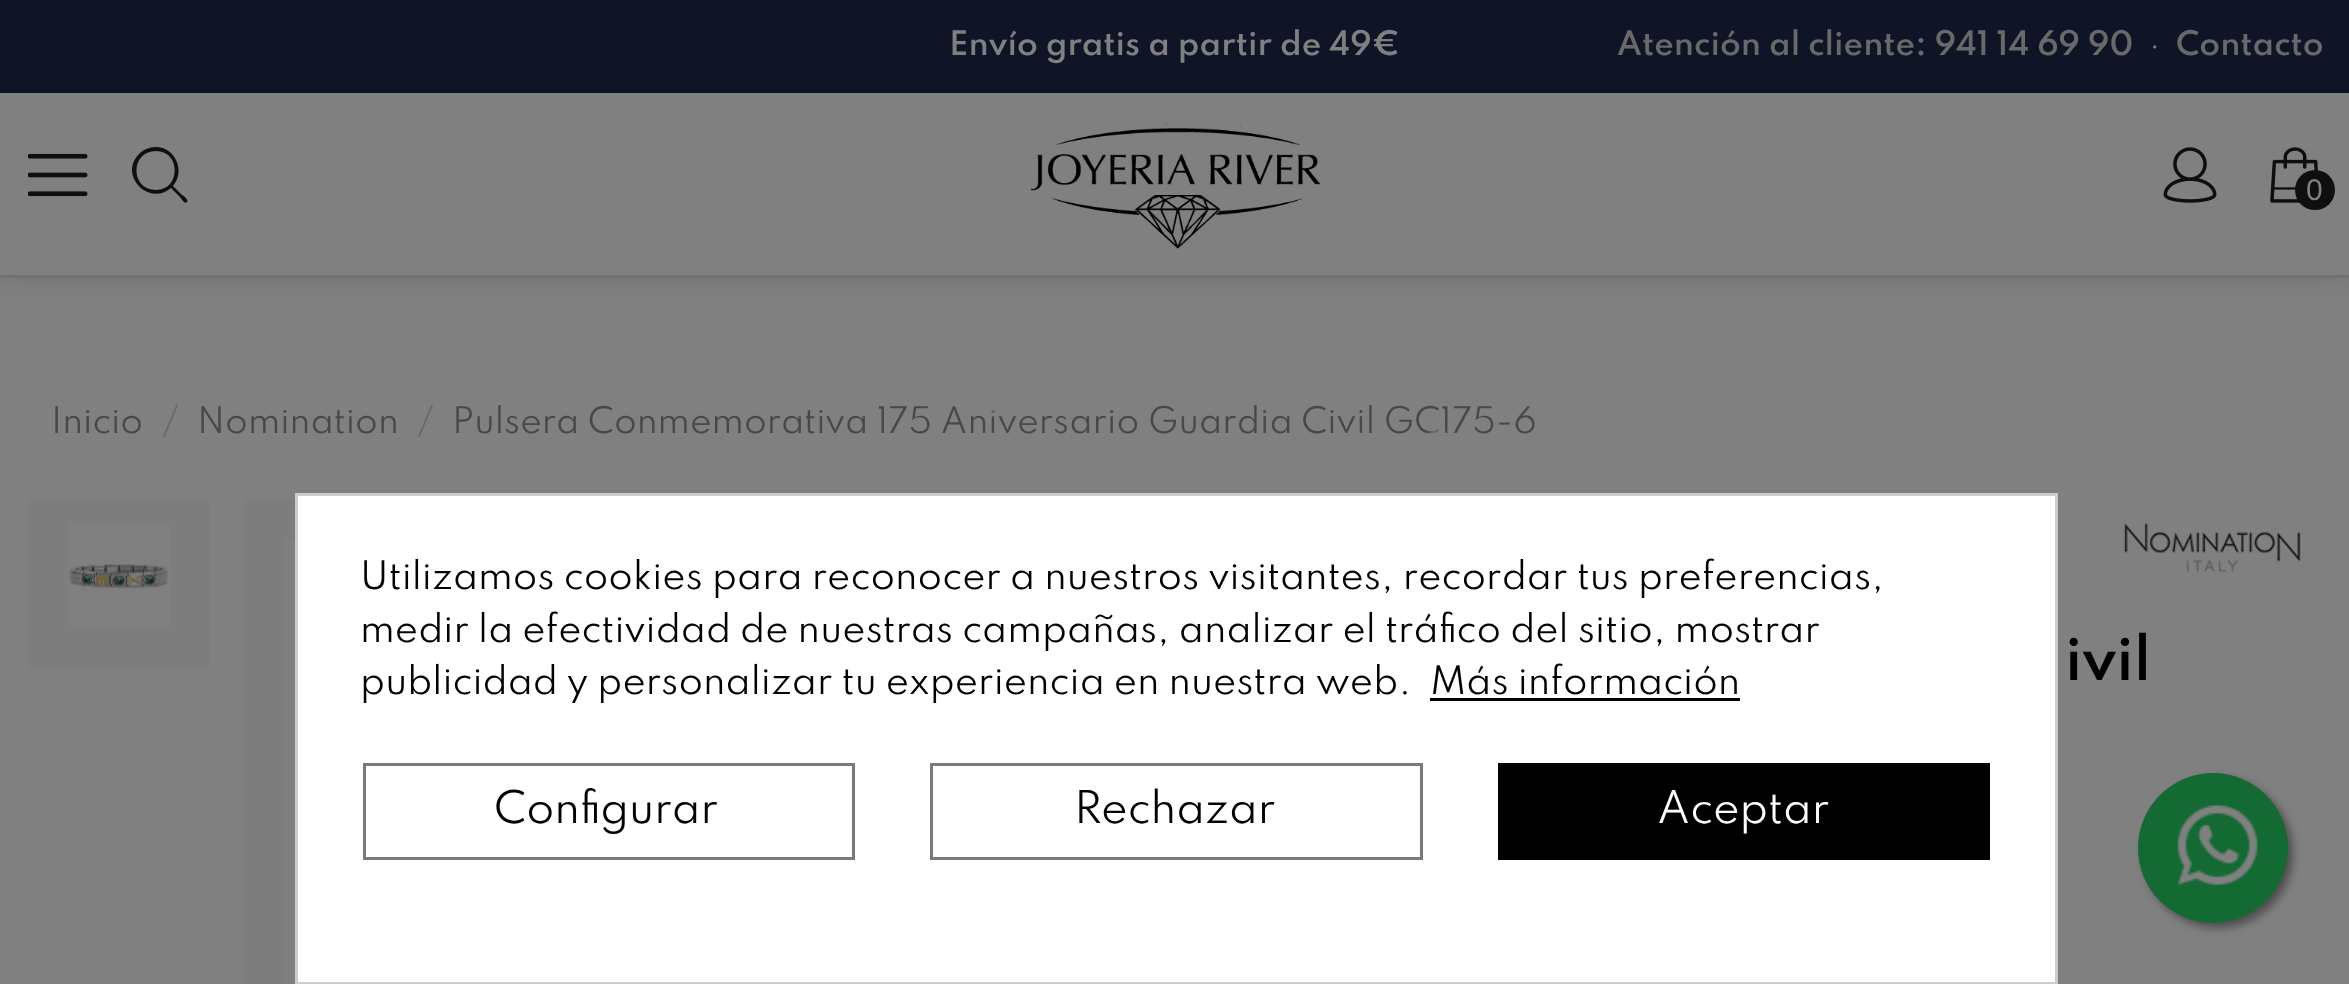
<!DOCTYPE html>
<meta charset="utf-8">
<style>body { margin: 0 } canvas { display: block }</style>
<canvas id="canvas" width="2349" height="984"></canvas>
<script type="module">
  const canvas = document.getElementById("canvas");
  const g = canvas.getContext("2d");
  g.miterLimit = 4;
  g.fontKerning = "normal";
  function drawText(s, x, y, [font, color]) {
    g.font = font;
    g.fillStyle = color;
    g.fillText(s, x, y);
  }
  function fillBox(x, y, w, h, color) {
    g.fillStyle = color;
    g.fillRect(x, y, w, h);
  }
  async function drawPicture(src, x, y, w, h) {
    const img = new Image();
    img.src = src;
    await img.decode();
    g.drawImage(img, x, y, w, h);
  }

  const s1 = ["600 30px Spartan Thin", "#808080"];
  const s2 = ["600 30px Spartan Thin", "#696969"];
  const s3 = ["30px Spartan Thin", "#808080"];
  const s4 = ["30px Liberation Sans", "#808080"];
  const s5 = ["32.5px Spartan Thin", "#484848"];
  const s6 = ["32.5px Spartan Thin", "#696969"];
  const s7 = ["600 55px Spartan Thin", "#050000"];
  const s8 = ["35px Spartan Thin", "#050000"];
  const s9 = ["40px Spartan Thin", "#050000"];
  const s10 = ["40px Spartan Thin", "#FFFFFF"];

  fillBox(0, 0, 2349, 984, "#808080");
  g.fillStyle = "rgba(0, 0, 0, 0.17)";
  g.filter = "blur(14px)";
  g.beginPath();
  g.rect(0, -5, 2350, 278);
  g.fill();
  g.filter = "none";
  fillBox(0, 0, 2349, 93, "#101427");
  drawText("Envío gratis a partir de 49€", 949, 55, s1);
  drawText("Atención al cliente: 941 14 69 90", 1617, 55, s2);
  drawText("·", 2149, 55, s3);
  drawText("Contacto", 2176, 55, s2);
  fillBox(0, 93, 2349, 182, "#808080");
  fillBox(0, 275, 2349, 3, "#727272");
  await drawPicture("pic1.png", 28, 153, 60, 44);
  g.fillStyle = "#0F0F0E";
  g.beginPath();
  g.moveTo(156, 147);
  g.bezierCurveTo(175, 147, 186, 171, 173, 186);
  g.lineTo(182, 195);
  g.bezierCurveTo(184, 196, 189, 200, 187, 202);
  g.bezierCurveTo(185, 205, 181, 198, 180, 197);
  g.lineTo(171, 188);
  g.bezierCurveTo(149, 207, 118, 175, 139, 154);
  g.bezierCurveTo(143, 150, 149, 147, 156, 147);
  g.closePath();
  g.moveTo(156, 190);
  g.bezierCurveTo(181, 190, 181, 151, 156, 151);
  g.bezierCurveTo(130, 151, 130, 190, 156, 190);
  g.closePath();
  g.fill();
  await drawPicture("pic2.png", 1031, 123, 290, 126);
  await drawPicture("pic3.png", 2163, 147, 54, 56);
  await drawPicture("pic4.png", 2270, 147, 48, 56);
  g.beginPath();
  g.arc(2315, 190, 20, 0, Math.PI * 2);
  g.fill();
  drawText("0", 2306, 200, s4);
  drawText("Inicio", 51, 433, s5);
  drawText("/", 162, 433, s6);
  drawText("Nomination", 197, 433, s5);
  drawText("/", 417, 433, s6);
  drawText("Pulsera Conmemorativa 175 Aniversario Guardia Civil GC175-6", 452, 433, s5);
  fillBox(28, 500, 182, 168, "#7D7D7D");
  await drawPicture("pic5.png", 68, 523, 102, 104);
  fillBox(245, 500, 50, 484, "#7D7D7D");
  fillBox(285, 540, 10, 444, "#808080");
  await drawPicture("pic6.png", 2123, 523, 178, 50);
  drawText("ivil", 2065, 680, s7);
  await drawPicture("pic7.png", 991, 410, 985, 83);
  g.fillStyle = "#FFFFFF";
  g.beginPath();
  g.rect(296.5, 494.5, 1760, 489);
  g.fill();
  g.strokeStyle = "#CCCCCC";
  g.lineWidth = 3;
  g.stroke();
  drawText("Utilizamos cookies para reconocer a nuestros visitantes, recordar tus preferencias,", 360, 589, s8);
  drawText("medir la efectividad de nuestras campañas, analizar el tráfico del sitio, mostrar", 360, 642, s8);
  drawText("publicidad y personalizar tu experiencia en nuestra web.", 360, 694, s8);
  drawText("Más información", 1430, 694, s8);
  fillBox(1430, 698, 310, 3, "#000000");
  g.strokeStyle = "#7A7A7A";
  g.strokeRect(364.5, 764.5, 489, 94);
  drawText("Configurar", 494, 823, s9);
  g.strokeRect(931.5, 764.5, 490, 94);
  drawText("Rechazar", 1074, 823, s9);
  fillBox(1498, 763, 492, 97, "#000000");
  drawText("Aceptar", 1657, 823, s10);
  g.fillStyle = "#4D4D4D";
  g.filter = "blur(4px)";
  g.beginPath();
  g.roundRect(2143, 778, 150, 150, 75);
  g.fill();
  g.filter = "none";
  g.fillStyle = "#136A33";
  g.beginPath();
  g.arc(2213, 848, 75, 0, Math.PI * 2);
  g.fill();
  await drawPicture("pic8.png", 2177, 805, 81, 81);
</script>
